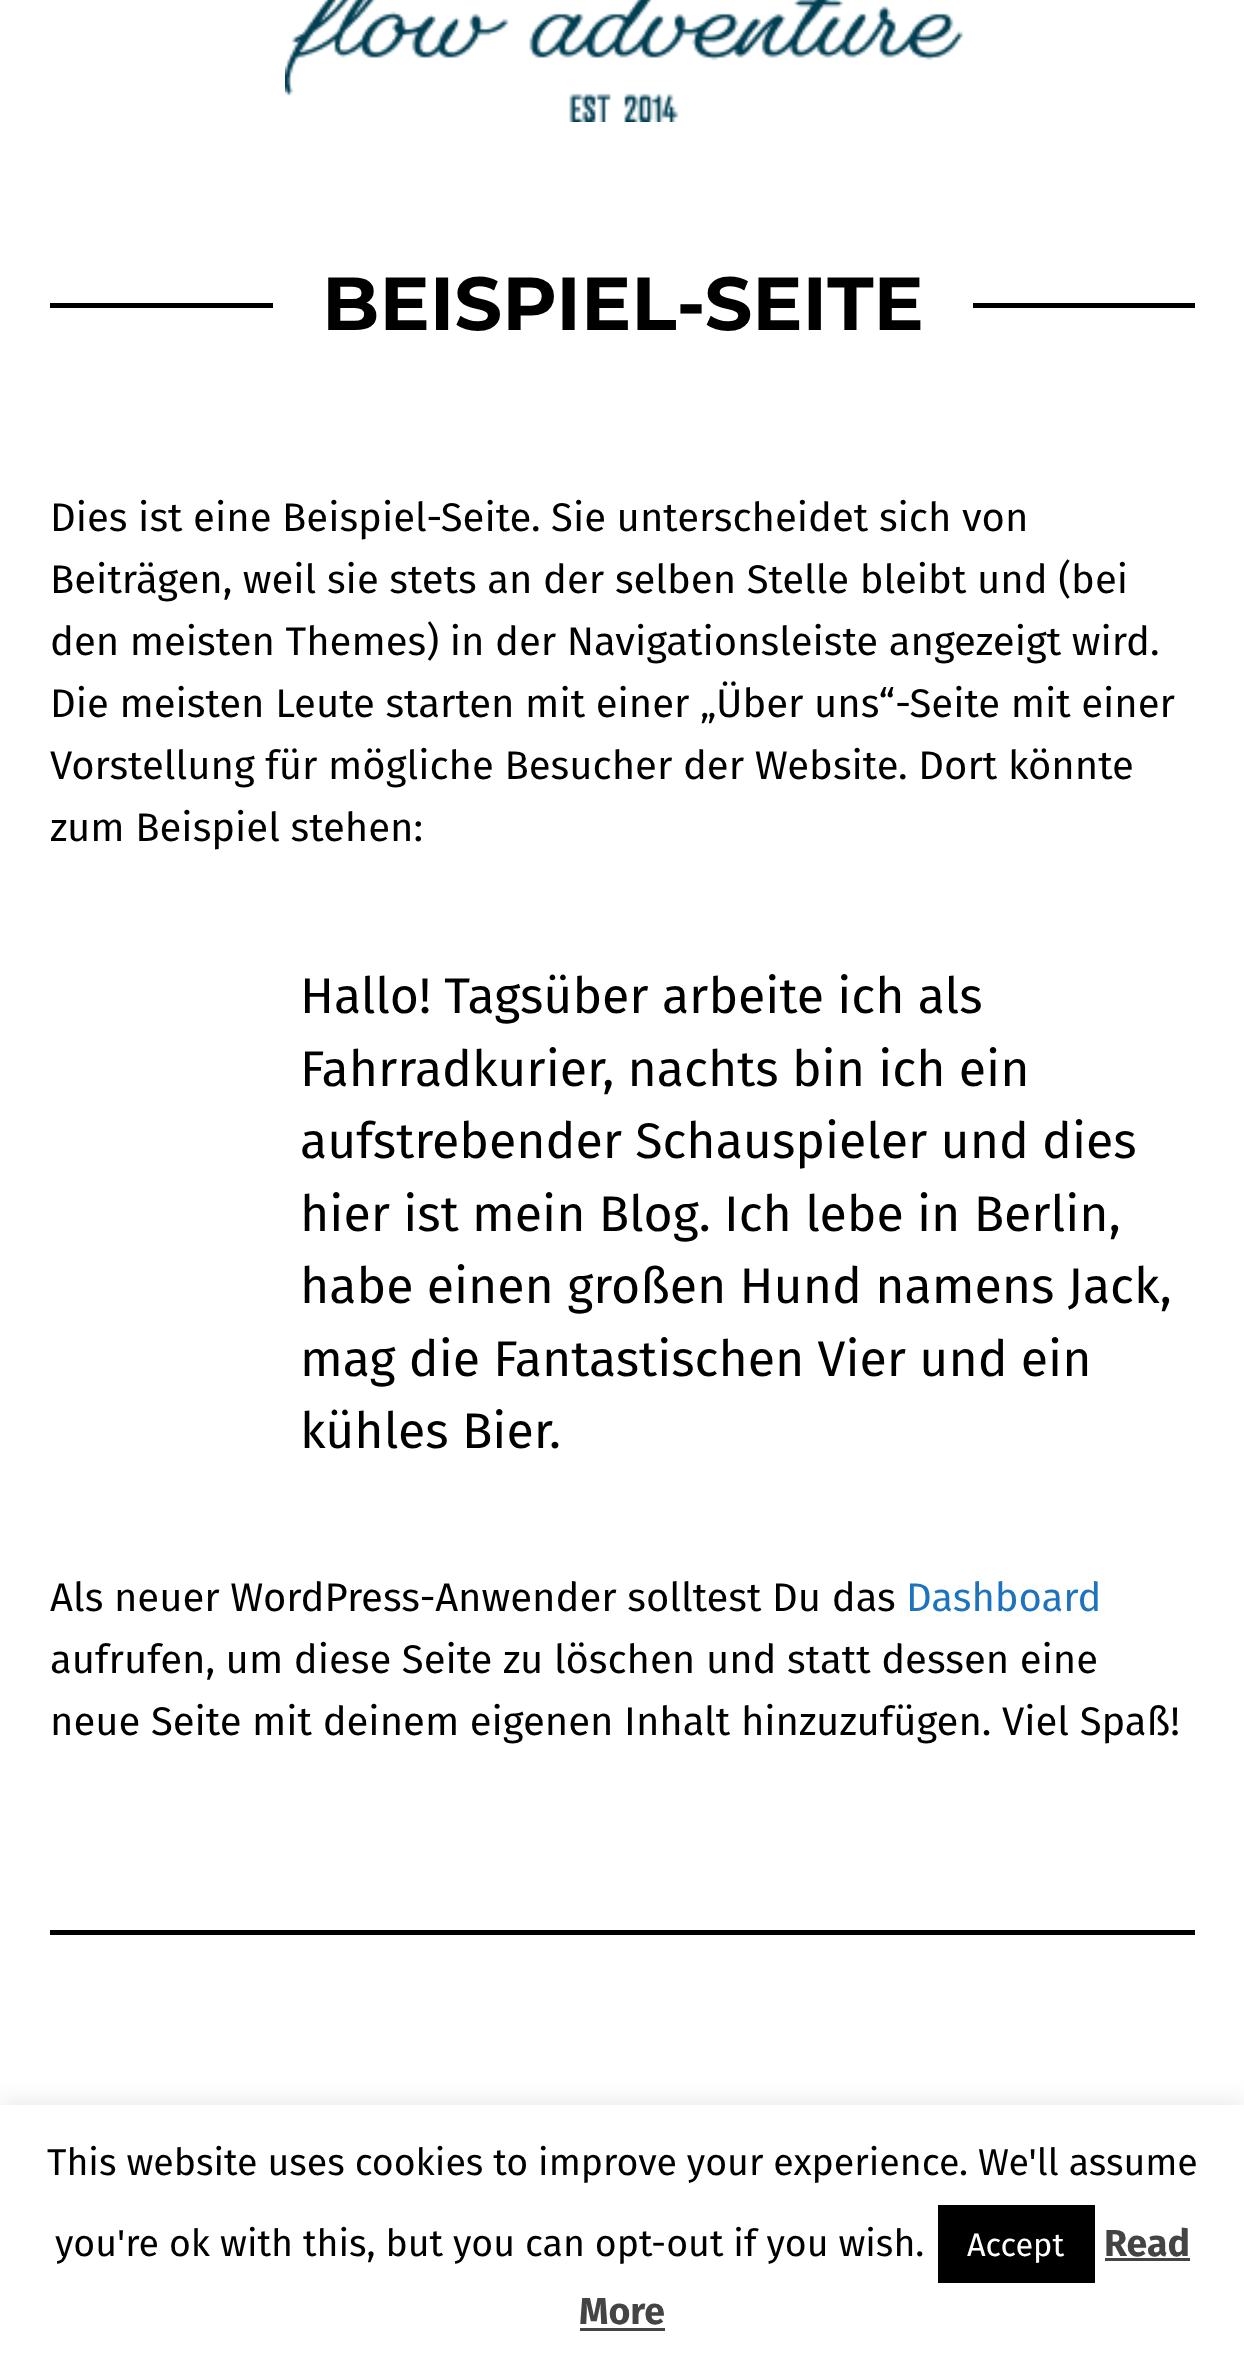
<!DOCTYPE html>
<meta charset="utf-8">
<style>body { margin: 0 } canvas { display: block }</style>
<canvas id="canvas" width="1244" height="2371"></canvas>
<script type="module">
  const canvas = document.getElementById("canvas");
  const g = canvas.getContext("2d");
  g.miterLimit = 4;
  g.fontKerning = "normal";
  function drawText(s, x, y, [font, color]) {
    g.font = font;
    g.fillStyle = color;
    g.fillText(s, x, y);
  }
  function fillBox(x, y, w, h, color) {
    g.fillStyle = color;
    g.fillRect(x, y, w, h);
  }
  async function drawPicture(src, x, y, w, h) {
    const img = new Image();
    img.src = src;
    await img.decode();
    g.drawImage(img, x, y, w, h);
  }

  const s1 = ["bold 75px Montserrat", "#000000"];
  const s2 = ["40px Fira Sans", "#000000"];
  const s3 = ["50px Fira Sans", "#000000"];
  const s4 = ["40px Fira Sans", "#1E73BE"];
  const s5 = ["37.5px Fira Sans", "#000000"];
  const s6 = ["32.5px Fira Sans", "#FFFFFF"];
  const s7 = ["bold 37.5px Fira Sans", "#444444"];

  fillBox(0, 0, 1244, 2371, "#FFFFFF");
  await drawPicture("pic1.png", 285, 0, 678, 122);
  fillBox(50, 303, 1145, 5, "#000000");
  fillBox(273, 303, 700, 5, "#FFFFFF");
  drawText("BEISPIEL-SEITE", 322, 330, s1);
  drawText("Dies ist eine Beispiel-Seite. Sie unterscheidet sich von", 50, 531, s2);
  drawText("Beiträgen, weil sie stets an der selben Stelle bleibt und (bei", 50, 593, s2);
  drawText("den meisten Themes) in der Navigationsleiste angezeigt wird.", 50, 655, s2);
  drawText("Die meisten Leute starten mit einer „Über uns“-Seite mit einer", 50, 717, s2);
  drawText("Vorstellung für mögliche Besucher der Website. Dort könnte", 50, 779, s2);
  drawText("zum Beispiel stehen:", 50, 841, s2);
  drawText("Hallo! Tagsüber arbeite ich als", 300, 1013, s3);
  drawText("Fahrradkurier, nachts bin ich ein", 300, 1086, s3);
  drawText("aufstrebender Schauspieler und dies", 300, 1158, s3);
  drawText("hier ist mein Blog. Ich lebe in Berlin,", 300, 1231, s3);
  drawText("habe einen großen Hund namens Jack,", 300, 1303, s3);
  drawText("mag die Fantastischen Vier und ein", 300, 1376, s3);
  drawText("kühles Bier.", 300, 1448, s3);
  drawText("Als neuer WordPress-Anwender solltest Du das", 50, 1611, s2);
  drawText("Dashboard", 906, 1611, s4);
  drawText("aufrufen, um diese Seite zu löschen und statt dessen eine", 50, 1673, s2);
  drawText("neue Seite mit deinem eigenen Inhalt hinzuzufügen. Viel Spaß!", 50, 1735, s2);
  fillBox(50, 1930, 1145, 5, "#000000");
  g.fillStyle = "rgba(172, 171, 171, 0.3)";
  g.filter = "blur(12.5px)";
  g.beginPath();
  g.rect(0, 2103, 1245, 267);
  g.fill();
  g.filter = "none";
  fillBox(0, 2105, 1244, 266, "#FFFFFF");
  drawText("This website uses cookies to improve your experience. We'll assume", 47, 2175, s5);
  drawText("you're ok with this, but you can opt-out if you wish.", 55, 2256, s5);
  fillBox(938, 2205, 157, 78, "#000000");
  drawText("Accept", 967, 2256, s6);
  drawText("Read", 1104, 2256, s7);
  fillBox(1105, 2258, 85, 3, "#444444");
  drawText("More", 579, 2324, s7);
  fillBox(580, 2328, 85, 3, "#444444");
</script>
